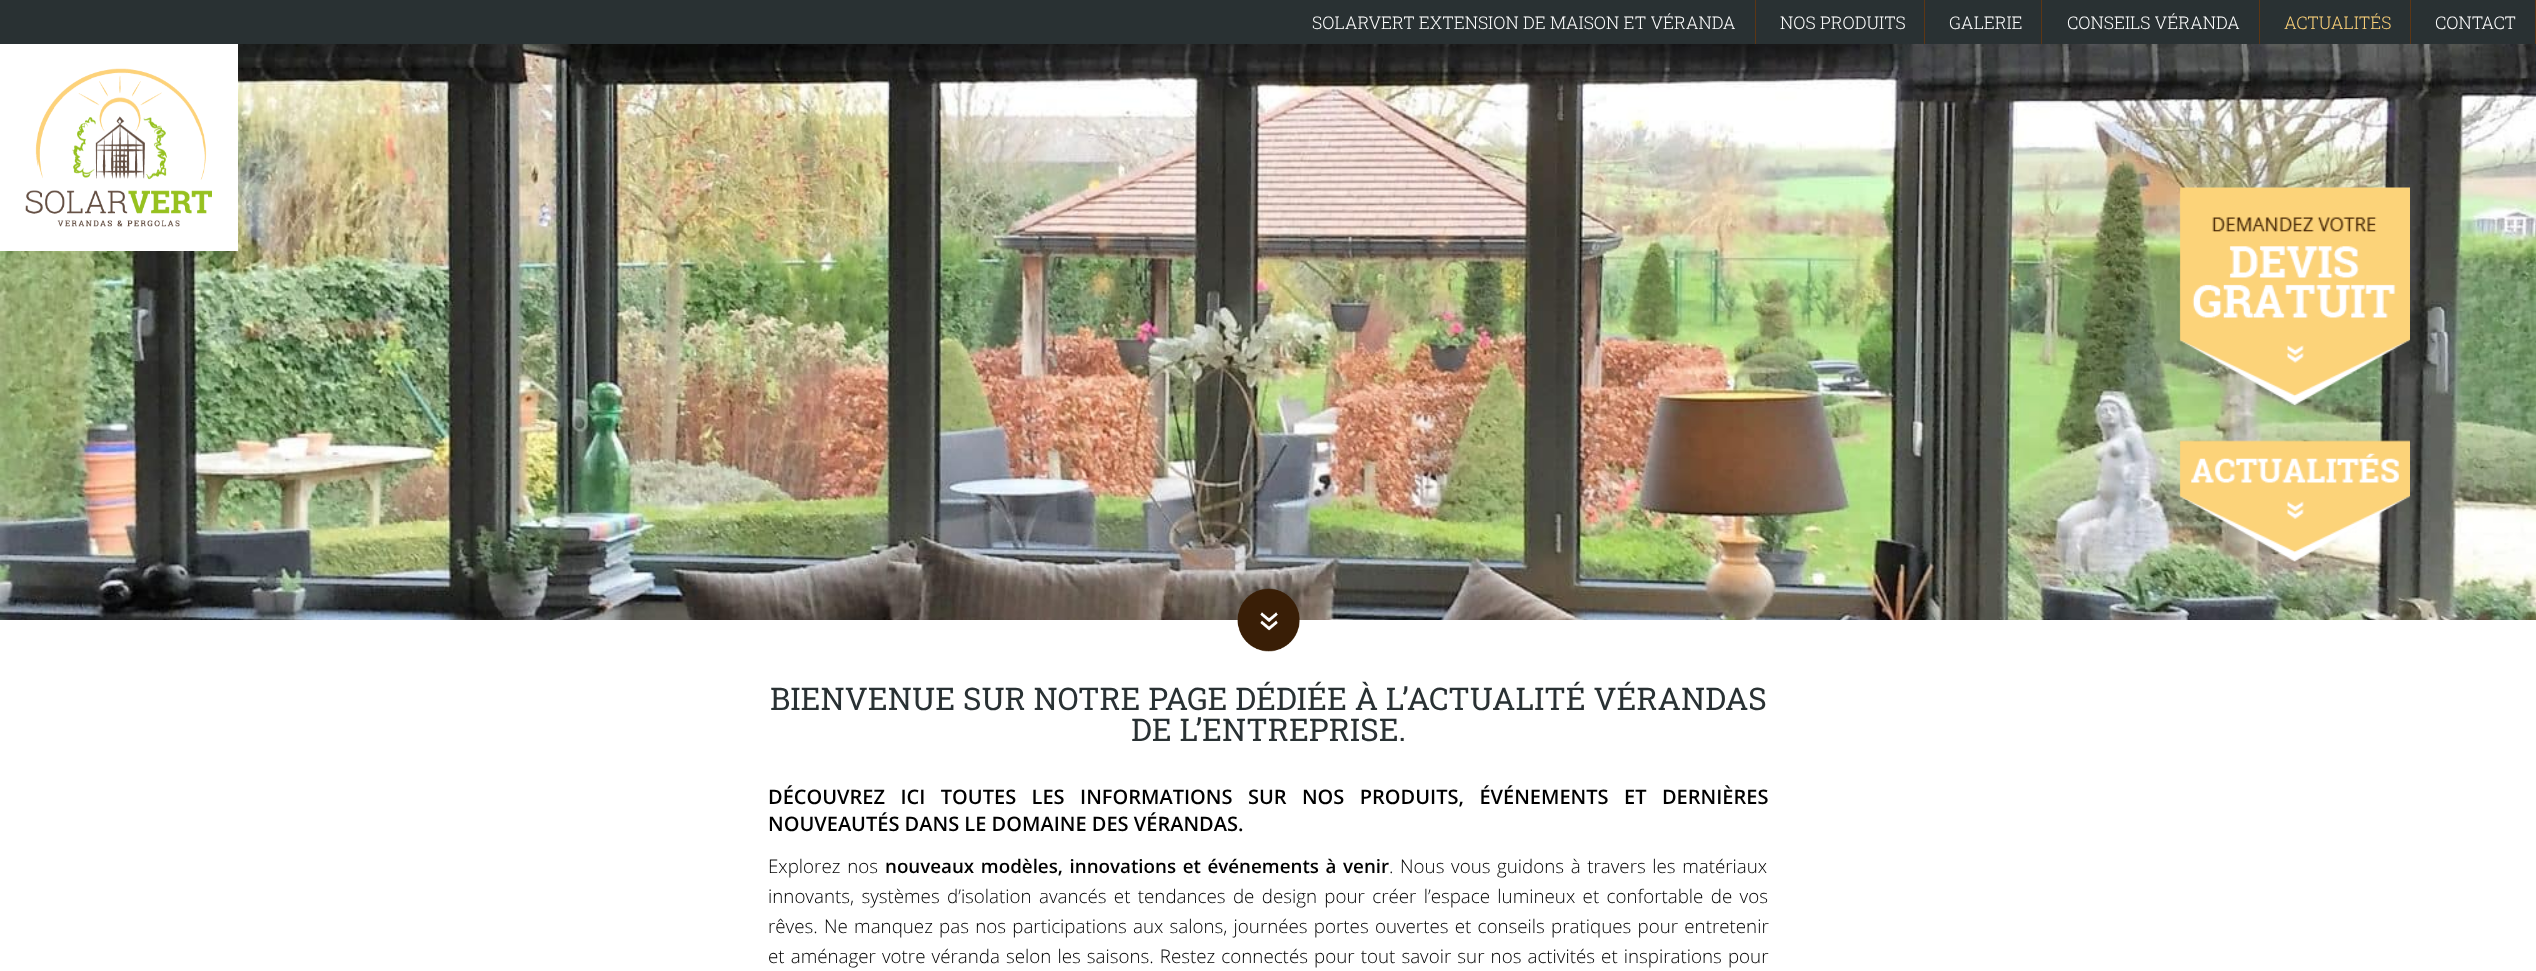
<!DOCTYPE html>
<meta charset="utf-8">
<style>body { margin: 0 } canvas { display: block }</style>
<canvas id="canvas" width="2536" height="971"></canvas>
<script type="module">
  const canvas = document.getElementById("canvas");
  const g = canvas.getContext("2d");
  g.miterLimit = 4;
  g.fontKerning = "normal";
  function drawText(s, x, y, [font, color]) {
    g.font = font;
    g.fillStyle = color;
    g.fillText(s, x, y);
  }
  function fillBox(x, y, w, h, color) {
    g.fillStyle = color;
    g.fillRect(x, y, w, h);
  }
  async function drawPicture(src, x, y, w, h) {
    const img = new Image();
    img.src = src;
    await img.decode();
    g.drawImage(img, x, y, w, h);
  }

  const s1 = ["300 17.5px Roboto Slab", "#FFFFFF"];
  const s2 = ["300 17.5px Roboto Slab", "#FDD27A"];
  const s3 = ["31.25px Roboto Slab", "#293133"];
  const s4 = ["600 20px Open Sans", "#000000"];
  const s5 = ["300 18.75px Open Sans", "#000000"];
  const s6 = ["600 18.75px Open Sans", "#000000"];

  fillBox(0, 0, 2536, 971, "#FFFFFF");
  fillBox(0, 0, 2535, 44, "#293133");
  fillBox(1755, 0, 1, 44, "#5D3614");
  drawText("SOLARVERT EXTENSION DE MAISON ET VÉRANDA", 1312, 29, s1);
  fillBox(1924, 0, 1, 44, "#5D3614");
  drawText("NOS PRODUITS", 1780, 29, s1);
  fillBox(2041, 0, 1, 44, "#5D3614");
  drawText("GALERIE", 1949, 29, s1);
  fillBox(2259, 0, 1, 44, "#5D3614");
  drawText("CONSEILS VÉRANDA", 2067, 29, s1);
  fillBox(2410, 0, 1, 44, "#5D3614");
  drawText("ACTUALITÉS", 2284, 29, s2);
  fillBox(2535, 0, 1, 44, "#5D3614");
  drawText("CONTACT", 2435, 29, s1);
  await drawPicture("pic2.png", 0, 44, 2536, 576);
  fillBox(0, 44, 238, 207, "#FFFFFF");
  await drawPicture("pic1.png", 25, 68, 187, 159);
  await drawPicture("pic3.png", 1237, 588, 63, 64);
  await drawPicture("pic4.png", 2179, 187, 231, 219);
  await drawPicture("pic5.png", 2179, 440, 231, 122);
  drawText("BIENVENUE SUR NOTRE PAGE DÉDIÉE À L’ACTUALITÉ VÉRANDAS", 770, 710, s3);
  drawText("DE L’ENTREPRISE.", 1131, 741, s3);
  g.wordSpacing = "10.25px";
  drawText("DÉCOUVREZ ICI TOUTES LES INFORMATIONS SUR NOS PRODUITS, ÉVÉNEMENTS ET DERNIÈRES", 768, 804, s4);
  g.wordSpacing = "0px";
  drawText("NOUVEAUTÉS DANS LE DOMAINE DES VÉRANDAS.", 768, 831, s4);
  g.wordSpacing = "2px";
  drawText("Explorez nos", 768, 873, s5);
  g.wordSpacing = "1.75px";
  drawText("nouveaux modèles, innovations et événements à venir", 885, 873, s6);
  drawText(". Nous vous guidons à travers les matériaux", 1389, 873, s5);
  g.wordSpacing = "2.5px";
  drawText("innovants, systèmes d’isolation avancés et tendances de design pour créer l’espace lumineux et confortable de vos", 768, 903, s5);
  g.wordSpacing = "1.4px";
  drawText("rêves. Ne manquez pas nos participations aux salons, journées portes ouvertes et conseils pratiques pour entretenir", 768, 933, s5);
  g.wordSpacing = "1.25px";
  drawText("et aménager votre véranda selon les saisons. Restez connectés pour tout savoir sur nos activités et inspirations pour", 768, 963, s5);
</script>
